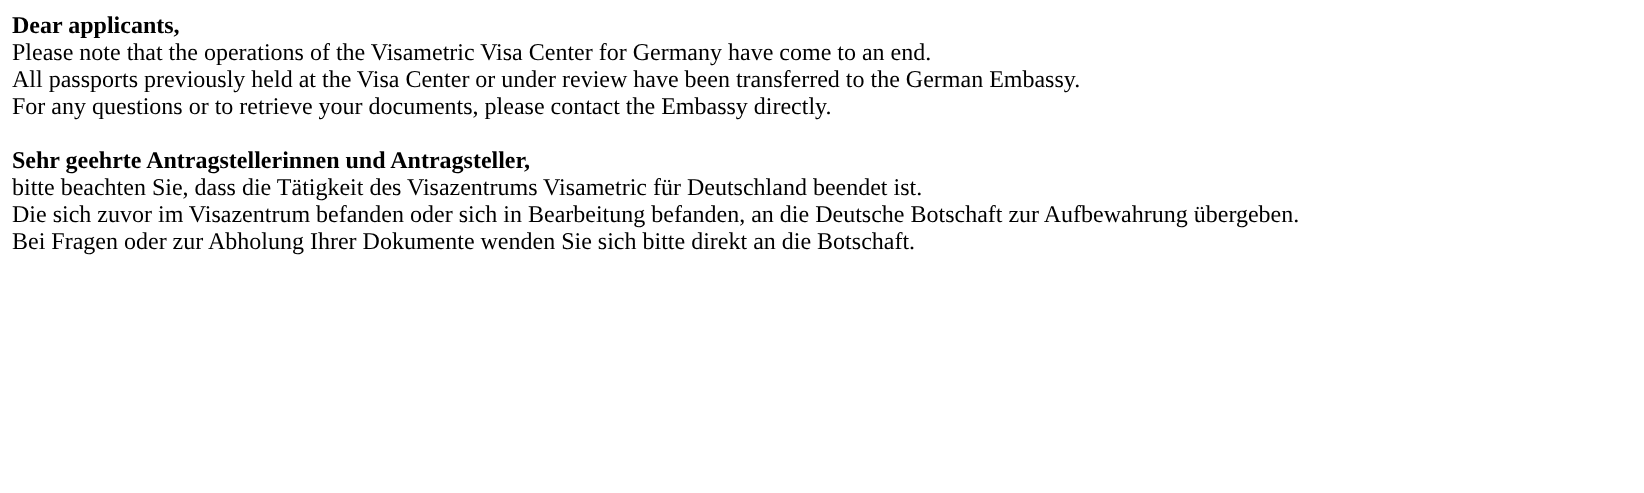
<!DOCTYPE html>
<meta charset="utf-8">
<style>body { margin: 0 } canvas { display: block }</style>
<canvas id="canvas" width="1644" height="493"></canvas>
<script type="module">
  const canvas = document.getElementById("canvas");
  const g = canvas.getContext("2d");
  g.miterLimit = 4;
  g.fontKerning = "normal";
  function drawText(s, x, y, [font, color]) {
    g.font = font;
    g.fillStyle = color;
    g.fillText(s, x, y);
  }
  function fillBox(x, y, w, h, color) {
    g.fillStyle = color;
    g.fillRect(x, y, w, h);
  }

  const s1 = ["bold 24px Liberation Serif", "#000000"];
  const s2 = ["24px Liberation Serif", "#000000"];

  fillBox(0, 0, 1644, 493, "#FFFFFF");
  drawText("Dear applicants,", 12, 33, s1);
  drawText("Please note that the operations of the Visametric Visa Center for Germany have come to an end.", 12, 60, s2);
  drawText("All passports previously held at the Visa Center or under review have been transferred to the German Embassy.", 12, 87, s2);
  drawText("For any questions or to retrieve your documents, please contact the Embassy directly.", 12, 114, s2);
  drawText("Sehr geehrte Antragstellerinnen und Antragsteller,", 12, 168, s1);
  drawText("bitte beachten Sie, dass die Tätigkeit des Visazentrums Visametric für Deutschland beendet ist.", 12, 195, s2);
  drawText("Die sich zuvor im Visazentrum befanden oder sich in Bearbeitung befanden, an die Deutsche Botschaft zur Aufbewahrung übergeben.", 12, 222, s2);
  drawText("Bei Fragen oder zur Abholung Ihrer Dokumente wenden Sie sich bitte direkt an die Botschaft.", 12, 249, s2);
</script>
